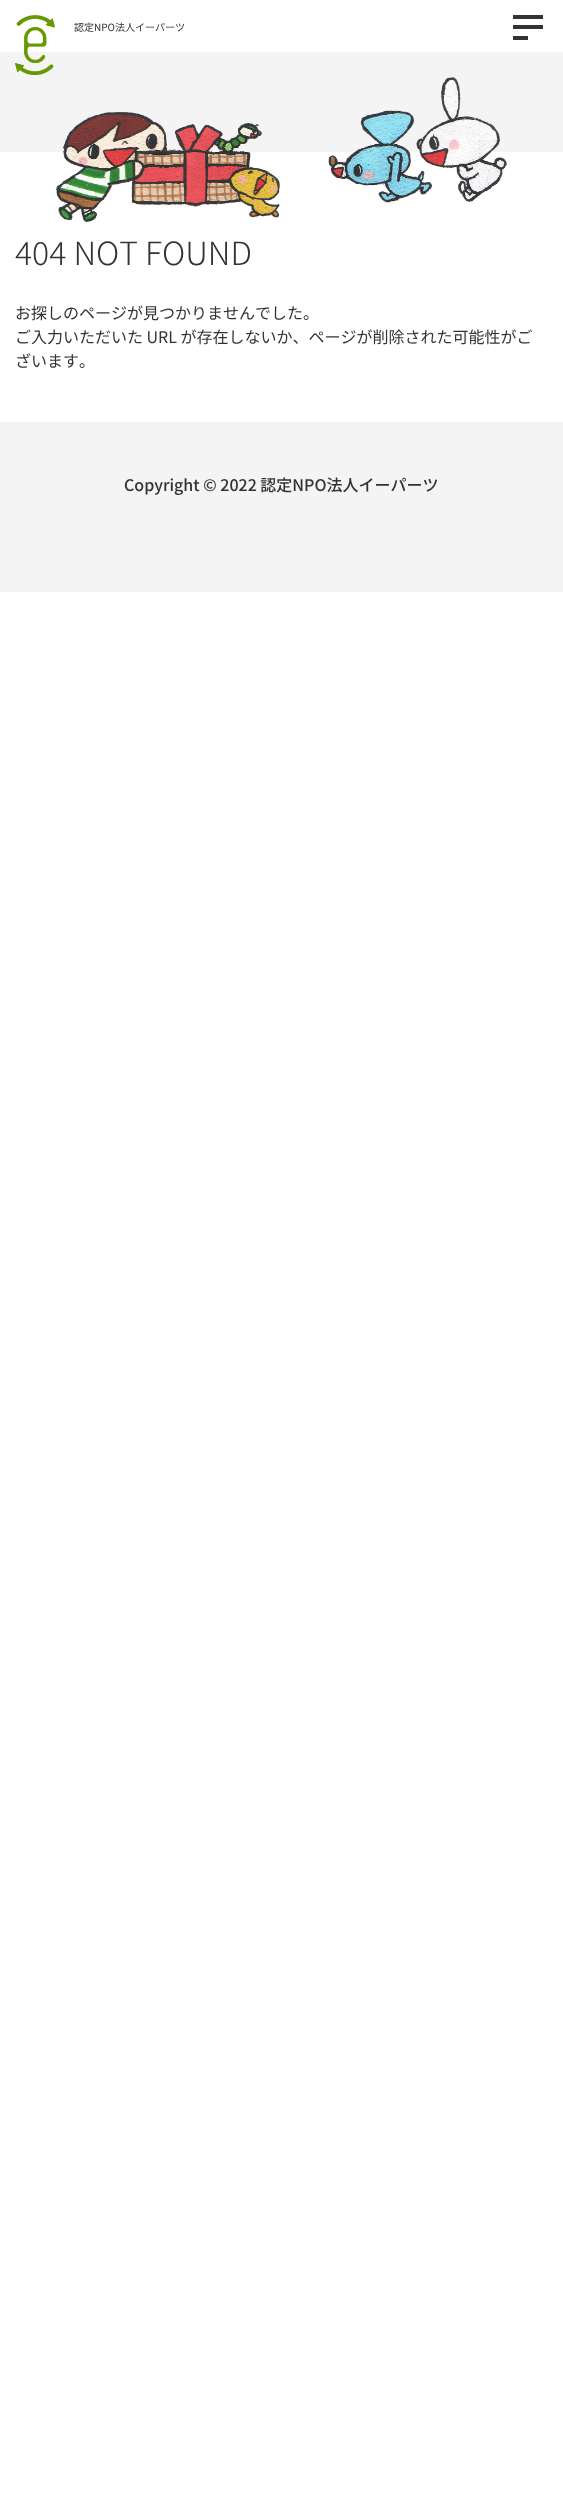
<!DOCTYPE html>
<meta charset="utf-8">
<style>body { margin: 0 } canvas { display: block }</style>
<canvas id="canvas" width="563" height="2505"></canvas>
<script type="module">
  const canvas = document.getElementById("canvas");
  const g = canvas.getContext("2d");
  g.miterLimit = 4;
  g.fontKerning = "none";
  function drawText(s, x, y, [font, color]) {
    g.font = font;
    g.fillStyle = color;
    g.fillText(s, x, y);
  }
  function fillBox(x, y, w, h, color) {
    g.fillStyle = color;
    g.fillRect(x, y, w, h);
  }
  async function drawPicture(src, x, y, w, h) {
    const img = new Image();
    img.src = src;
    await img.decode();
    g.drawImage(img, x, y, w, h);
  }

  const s1 = ["10px Noto Sans JP", "#333333"];
  const s2 = ["300 32px Noto Sans JP", "#333333"];
  const s3 = ["16px Noto Sans JP", "#333333"];
  const s4 = ["500 16px Noto Sans JP", "#333333"];

  fillBox(0, 0, 563, 2505, "#FFFFFF");
  fillBox(0, 52, 563, 100, "#F4F4F4");
  await drawPicture("pic1.png", 15, 15, 40, 60);
  drawText("認定NPO法人イーパーツ", 74, 31, s1);
  fillBox(513, 15, 30, 4, "#333333");
  fillBox(513, 25, 30, 4, "#333333");
  fillBox(513, 36, 15, 4, "#333333");
  await drawPicture("pic2.png", 56, 77, 451, 145);
  drawText("404 NOT FOUND", 15, 265, s2);
  drawText("お探しのページが見つかりませんでした。", 15, 319, s3);
  drawText("ご入力いただいた URL が存在しないか、ページが削除された可能性がご", 15, 343, s3);
  drawText("ざいます。", 15, 367, s3);
  fillBox(0, 422, 563, 170, "#F4F4F4");
  drawText("Copyright © 2022 認定NPO法人イーパーツ", 124, 491, s4);
</script>
